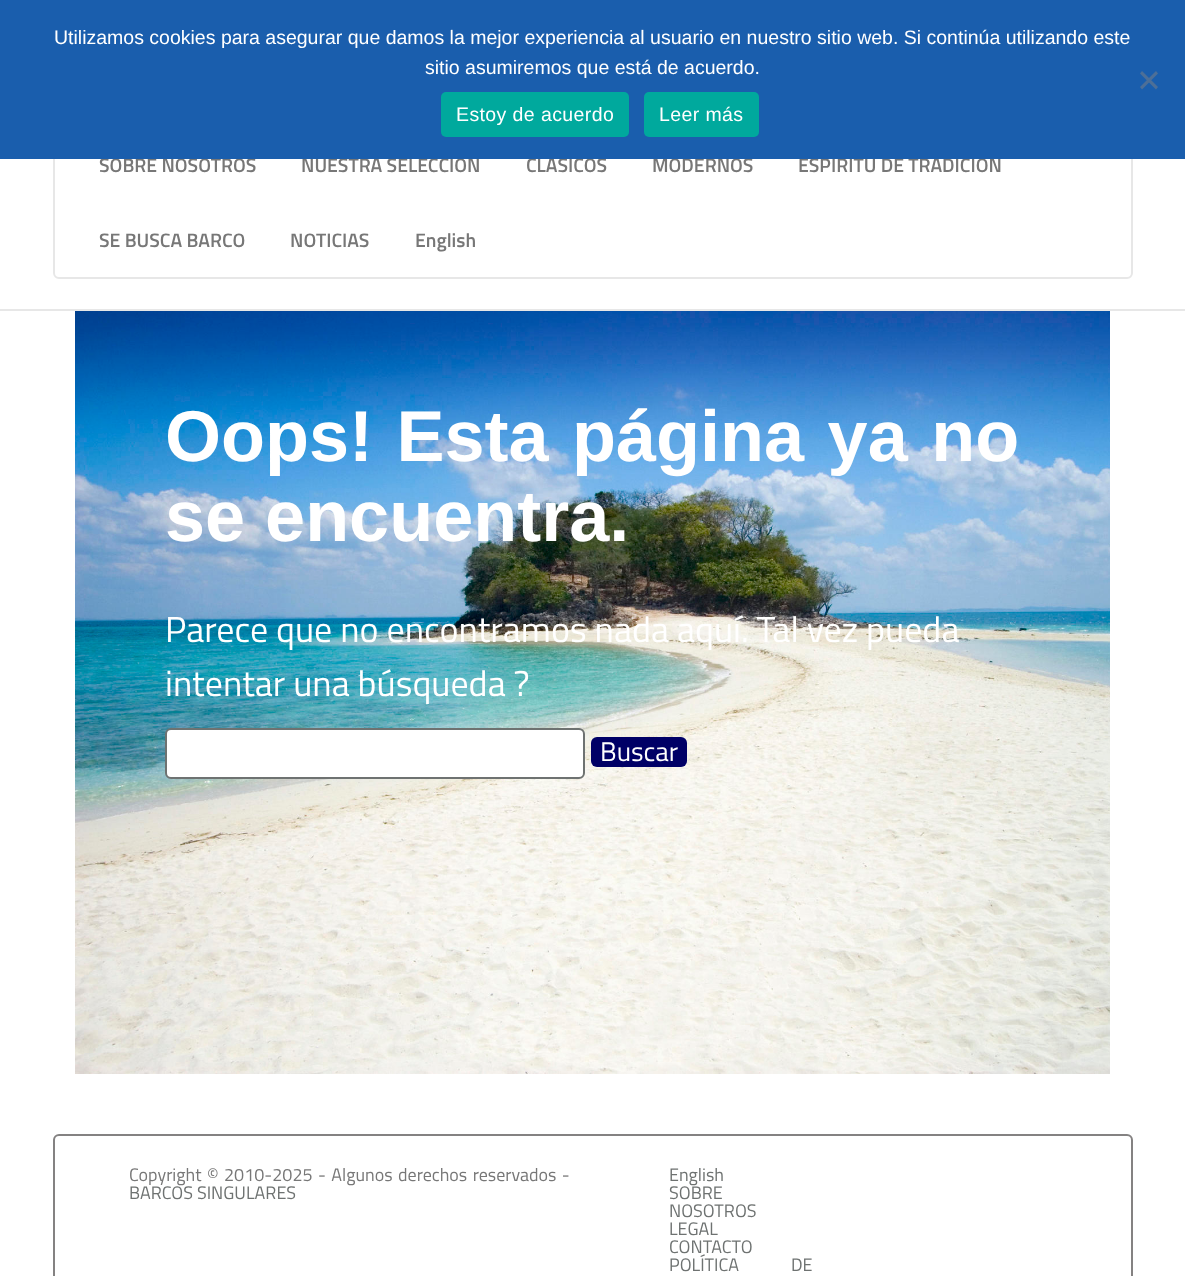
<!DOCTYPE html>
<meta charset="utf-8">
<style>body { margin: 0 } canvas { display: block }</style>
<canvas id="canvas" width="1185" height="1276"></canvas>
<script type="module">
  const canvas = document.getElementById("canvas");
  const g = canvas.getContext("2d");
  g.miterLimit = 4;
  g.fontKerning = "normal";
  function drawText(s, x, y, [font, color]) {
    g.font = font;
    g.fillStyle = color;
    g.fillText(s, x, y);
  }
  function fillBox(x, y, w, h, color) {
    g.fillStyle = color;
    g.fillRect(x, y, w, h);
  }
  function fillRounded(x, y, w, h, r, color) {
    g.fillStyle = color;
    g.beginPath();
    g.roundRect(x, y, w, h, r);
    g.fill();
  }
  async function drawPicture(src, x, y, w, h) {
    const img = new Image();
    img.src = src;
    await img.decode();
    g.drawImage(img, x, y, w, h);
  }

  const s1 = ["600 19.5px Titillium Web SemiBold", "#777777"];
  const s2 = ["19.5px Liberation Sans", "#FFFFFF"];
  const s3 = ["bold 72px Liberation Sans", "#FFFFFF"];
  const s4 = ["36px Titillium Web", "#FFFFFF"];
  const s5 = ["27px Titillium Web", "#FFFFFF"];
  const s6 = ["18px Titillium Web", "#777777"];
  const s7 = ["18px Titillium Web", "#6E7271"];

  fillBox(0, 0, 1185, 1276, "#FFFFFF");
  g.beginPath();
  g.roundRect(54, 1, 1078, 277, 5);
  g.strokeStyle = "#E7E7E7";
  g.lineWidth = 2;
  g.stroke();
  drawText("SOBRE NOSOTROS", 99, 172, s1);
  drawText("NUESTRA SELECCIÓN", 301, 172, s1);
  drawText("CLÁSICOS", 526, 172, s1);
  drawText("MODERNOS", 652, 172, s1);
  drawText("ESPÍRITU DE TRADICIÓN", 798, 172, s1);
  fillBox(0, 0, 1185, 159, "#1A5EAD");
  drawText("Utilizamos cookies para asegurar que damos la mejor experiencia al usuario en nuestro sitio web. Si continúa utilizando este", 54, 44, s2);
  drawText("sitio asumiremos que está de acuerdo.", 425, 74, s2);
  g.fillStyle = "#4D6F97";
  g.beginPath();
  g.moveTo(1156, 71);
  g.lineTo(1158, 73.5);
  g.lineTo(1142, 89.5);
  g.lineTo(1140, 87);
  g.closePath();
  g.fill();
  g.beginPath();
  g.moveTo(1140, 73.5);
  g.lineTo(1142, 71);
  g.lineTo(1158, 87);
  g.lineTo(1156, 89.5);
  g.closePath();
  g.fill();
  fillRounded(441, 92, 188, 45, 5, "#00A99D");
  g.letterSpacing = "0.4px";
  drawText("Estoy de acuerdo", 456, 121, s2);
  fillRounded(644, 92, 115, 45, 5, "#00A99D");
  drawText("Leer más", 659, 121, s2);
  await drawPicture("pic1.png", 75, 311, 1035, 763);
  g.letterSpacing = "0px";
  g.wordSpacing = "3.5px";
  drawText("Oops! Esta página ya no", 165, 461, s3);
  g.wordSpacing = "0px";
  drawText("se encuentra.", 165, 541, s3);
  drawText("Parece que no encontramos nada aquí. Tal vez pueda", 165, 642, s4);
  drawText("intentar una búsqueda ?", 165, 696, s4);
  g.beginPath();
  g.roundRect(166, 729, 418, 49, 5);
  g.fill();
  g.strokeStyle = "#6E7271";
  g.stroke();
  fillRounded(591, 737, 96, 30, 6, "#000066");
  drawText("Buscar", 600, 761, s5);
  g.beginPath();
  g.roundRect(54, 1135, 1078, 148, 5);
  g.strokeStyle = "#848282";
  g.stroke();
  g.wordSpacing = "1.5px";
  drawText("Copyright © 2010-2025", 129, 1181, s6);
  drawText("- Algunos derechos reservados -", 318, 1181, s6);
  g.wordSpacing = "0px";
  drawText("BARCOS SINGULARES", 129, 1199, s7);
  drawText("English", 669, 1181, s7);
  drawText("SOBRE", 669, 1199, s7);
  drawText("NOSOTROS", 669, 1217, s7);
  drawText("LEGAL", 669, 1235, s7);
  drawText("CONTACTO", 669, 1253, s7);
  g.wordSpacing = "48px";
  drawText("POLÍTICA DE", 669, 1271, s7);
  fillBox(0, 309, 1185, 2, "#E7E7E7");
  g.wordSpacing = "0px";
  drawText("SE BUSCA BARCO", 99, 247, s1);
  drawText("NOTICIAS", 290, 247, s1);
  drawText("English", 415, 247, s1);
</script>
